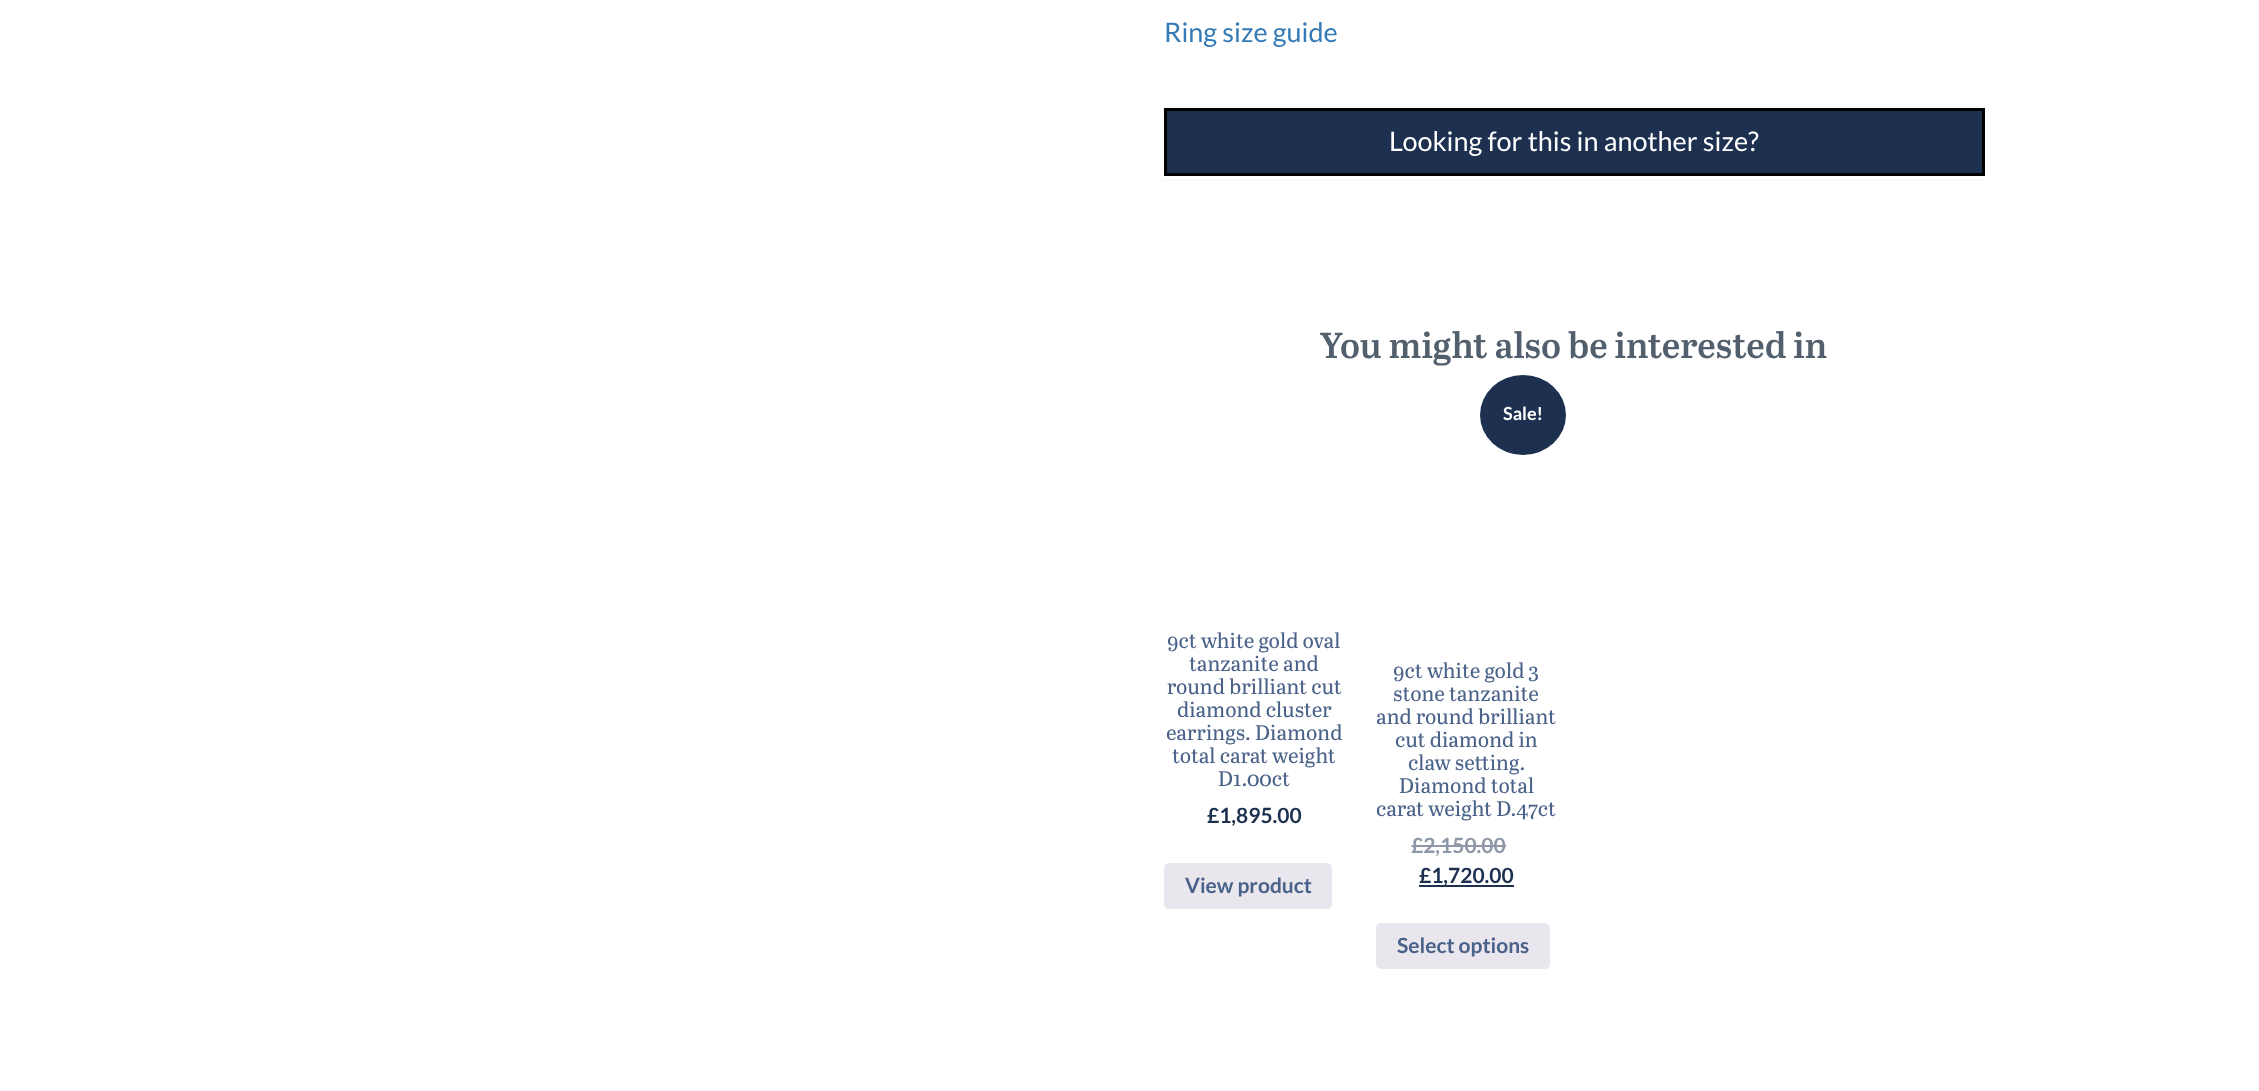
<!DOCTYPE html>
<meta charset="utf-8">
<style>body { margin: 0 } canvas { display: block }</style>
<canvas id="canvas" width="2259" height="1091"></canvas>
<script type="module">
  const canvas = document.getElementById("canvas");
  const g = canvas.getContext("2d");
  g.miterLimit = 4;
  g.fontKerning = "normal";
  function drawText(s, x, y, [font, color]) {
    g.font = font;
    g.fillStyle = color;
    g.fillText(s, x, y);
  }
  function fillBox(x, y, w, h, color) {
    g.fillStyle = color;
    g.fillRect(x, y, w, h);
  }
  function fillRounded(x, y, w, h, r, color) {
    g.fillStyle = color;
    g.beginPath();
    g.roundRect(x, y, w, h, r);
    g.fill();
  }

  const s1 = ["27px Lato", "#337AB7"];
  const s2 = ["27px Lato", "#FFFFFF"];
  const s3 = ["600 36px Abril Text", "#525F6D"];
  const s4 = ["21px Abril Text", "#4A6289"];
  const s5 = ["bold 21px Lato", "#1D3050"];
  const s6 = ["bold 21px Lato", "#4A6289"];
  const s7 = ["bold 18px Lato", "#FFFFFF"];
  const s8 = ["bold 21px Lato", "#8E98A8"];

  fillBox(0, 0, 2259, 1091, "#FFFFFF");
  drawText("Ring size guide", 1164, 42, s1);
  g.fillStyle = "#1D3050";
  g.beginPath();
  g.rect(1165.5, 109.5, 818, 65);
  g.fill();
  g.strokeStyle = "#000000";
  g.lineWidth = 3;
  g.stroke();
  drawText("Looking for this in another size?", 1389, 151, s2);
  g.fillStyle = "rgba(0, 0, 0, 0.05)";
  g.filter = "blur(1px)";
  g.beginPath();
  g.roundRect(1164, 177, 821, 3, 1.5);
  g.fill();
  g.filter = "none";
  fillRounded(1164, 176, 821, 3, 1.5, "#FFFFFF");
  drawText("You might also be interested in", 1320, 358, s3);
  drawText("9ct white gold oval", 1167, 648, s4);
  drawText("tanzanite and", 1189, 671, s4);
  drawText("round brilliant cut", 1167, 694, s4);
  drawText("diamond cluster", 1177, 717, s4);
  drawText("earrings. Diamond", 1166, 740, s4);
  drawText("total carat weight", 1172, 763, s4);
  drawText("D1.00ct", 1218, 786, s4);
  drawText("£1,895.00", 1207, 823, s5);
  fillRounded(1164, 863, 168, 46, 5, "#E9E6ED");
  drawText("View product", 1185, 893, s6);
  g.fillStyle = "#1D3050";
  g.beginPath();
  g.ellipse(1523, 415, 43, 40, 0, 0, Math.PI * 2);
  g.fill();
  drawText("Sale!", 1503, 420, s7);
  drawText("9ct white gold 3", 1393, 678, s4);
  drawText("stone tanzanite", 1393, 701, s4);
  drawText("and round brilliant", 1376, 724, s4);
  drawText("cut diamond in", 1395, 747, s4);
  drawText("claw setting.", 1408, 770, s4);
  drawText("Diamond total", 1399, 793, s4);
  drawText("carat weight D.47ct", 1376, 816, s4);
  drawText("£2,150.00", 1411, 853, s8);
  fillBox(1412, 845, 94, 2, "#8E98A8");
  fillBox(1419, 885, 95, 2, "#1D3050");
  drawText("£1,720.00", 1419, 883, s5);
  fillRounded(1376, 923, 174, 46, 5, "#E9E6ED");
  drawText("Select options", 1397, 953, s6);
</script>
